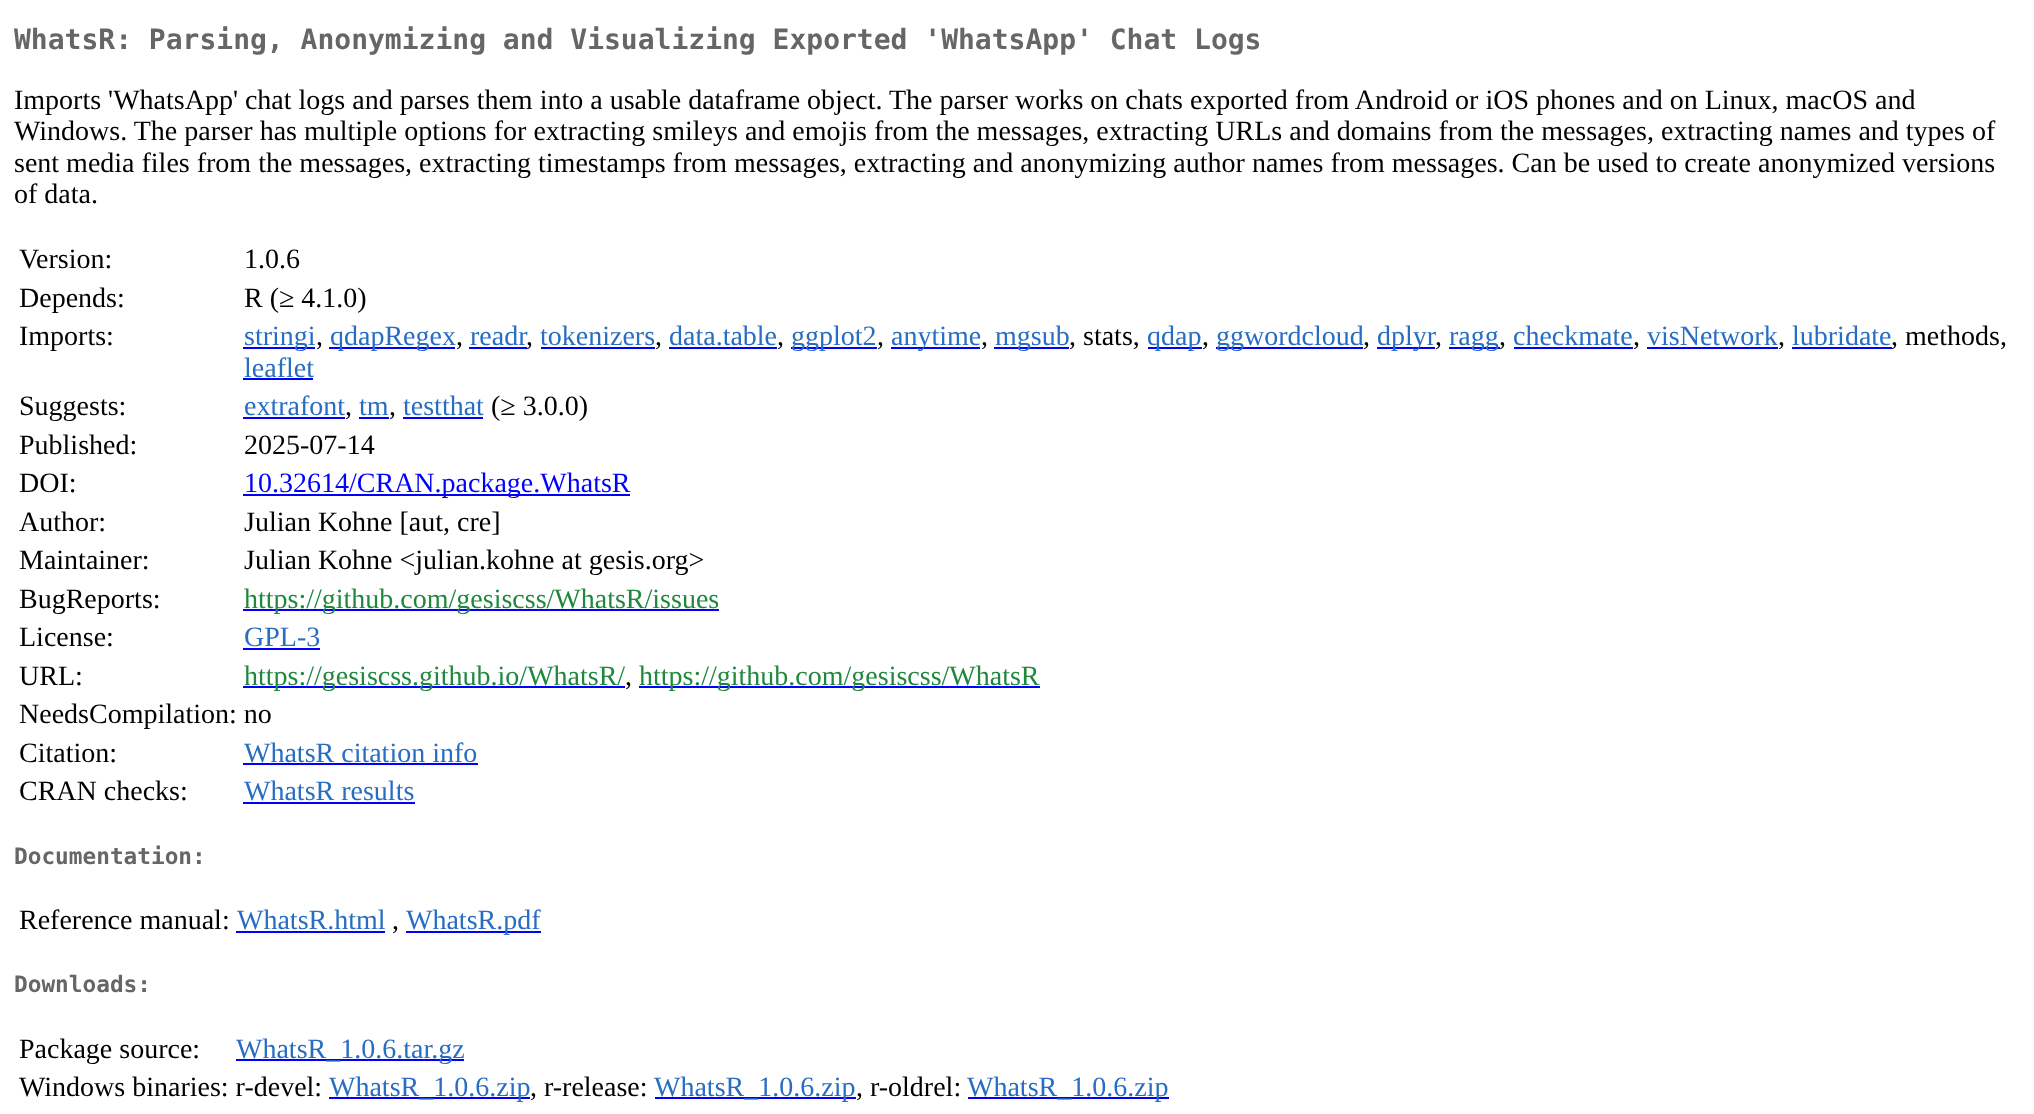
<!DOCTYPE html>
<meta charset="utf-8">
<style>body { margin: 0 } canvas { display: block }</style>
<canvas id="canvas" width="2034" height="1114"></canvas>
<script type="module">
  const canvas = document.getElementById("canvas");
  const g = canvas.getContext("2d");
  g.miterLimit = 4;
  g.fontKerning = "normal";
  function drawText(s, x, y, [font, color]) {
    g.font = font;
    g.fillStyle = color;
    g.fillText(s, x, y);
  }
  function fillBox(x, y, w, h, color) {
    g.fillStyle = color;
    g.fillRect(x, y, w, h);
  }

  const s1 = ["bold 28px DejaVu Sans Mono", "#666666"];
  const s2 = ["28px Liberation Serif", "#000000"];
  const s3 = ["28px Liberation Serif", "#276DC3"];
  const s4 = ["28px Liberation Serif", "#0000FF"];
  const s5 = ["28px Liberation Serif", "#1F883D"];
  const s6 = ["bold 22.75px DejaVu Sans Mono", "#666666"];

  fillBox(0, 0, 2034, 1114, "#FFFFFF");
  drawText("WhatsR: Parsing, Anonymizing and Visualizing Exported 'WhatsApp' Chat Logs", 14, 49, s1);
  drawText("Imports 'WhatsApp' chat logs and parses them into a usable dataframe object. The parser works on chats exported from Android or iOS phones and on Linux, macOS and", 14, 109, s2);
  drawText("Windows. The parser has multiple options for extracting smileys and emojis from the messages, extracting URLs and domains from the messages, extracting names and types of", 14, 140, s2);
  drawText("sent media files from the messages, extracting timestamps from messages, extracting and anonymizing author names from messages. Can be used to create anonymized versions", 14, 172, s2);
  drawText("of data.", 14, 203, s2);
  drawText("Version:", 19, 268, s2);
  drawText("1.0.6", 244, 268, s2);
  drawText("Depends:", 19, 307, s2);
  drawText("R (≥ 4.1.0)", 244, 307, s2);
  drawText("Imports:", 19, 345, s2);
  fillBox(243, 347, 72, 2, "#0000FF");
  drawText("stringi", 244, 345, s3);
  drawText(",", 316, 345, s2);
  fillBox(329, 347, 126, 2, "#0000FF");
  drawText("qdapRegex", 330, 345, s3);
  drawText(",", 456, 345, s2);
  drawText("readr", 470, 345, s3);
  fillBox(469, 347, 58, 2, "#0000FF");
  drawText(",", 526, 345, s2);
  drawText("tokenizers", 540, 345, s3);
  fillBox(541, 347, 114, 2, "#0000FF");
  drawText(",", 655, 345, s2);
  drawText("data.table", 669, 345, s3);
  fillBox(669, 347, 108, 2, "#0000FF");
  drawText(",", 777, 345, s2);
  fillBox(791, 347, 86, 2, "#0000FF");
  drawText("ggplot2", 791, 345, s3);
  drawText(",", 877, 345, s2);
  fillBox(891, 347, 89, 2, "#0000FF");
  drawText("anytime", 891, 345, s3);
  drawText(",", 981, 345, s2);
  fillBox(994, 347, 75, 2, "#0000FF");
  drawText("mgsub", 995, 345, s3);
  drawText(", stats,", 1069, 345, s2);
  fillBox(1148, 347, 54, 2, "#0000FF");
  drawText("qdap", 1147, 345, s3);
  drawText(",", 1202, 345, s2);
  fillBox(1216, 347, 147, 2, "#0000FF");
  drawText("ggwordcloud", 1216, 345, s3);
  drawText(",", 1363, 345, s2);
  fillBox(1377, 347, 58, 2, "#0000FF");
  drawText("dplyr", 1377, 345, s3);
  drawText(",", 1435, 345, s2);
  fillBox(1449, 347, 51, 2, "#0000FF");
  drawText("ragg", 1449, 345, s3);
  drawText(",", 1499, 345, s2);
  drawText("checkmate", 1513, 345, s3);
  fillBox(1514, 347, 119, 2, "#0000FF");
  drawText(",", 1633, 345, s2);
  drawText("visNetwork", 1647, 345, s3);
  fillBox(1647, 347, 131, 2, "#0000FF");
  drawText(",", 1778, 345, s2);
  drawText("lubridate", 1792, 345, s3);
  fillBox(1792, 347, 100, 2, "#0000FF");
  drawText(", methods,", 1891, 345, s2);
  drawText("leaflet", 244, 377, s3);
  fillBox(243, 378, 70, 2, "#0000FF");
  drawText("Suggests:", 19, 415, s2);
  drawText("extrafont", 244, 415, s3);
  fillBox(243, 417, 102, 2, "#0000FF");
  drawText(",", 345, 415, s2);
  drawText("tm", 359, 415, s3);
  fillBox(359, 417, 30, 2, "#0000FF");
  drawText(",", 389, 415, s2);
  drawText("testthat", 403, 415, s3);
  fillBox(403, 417, 80, 2, "#0000FF");
  drawText("(≥ 3.0.0)", 491, 415, s2);
  drawText("Published:", 19, 454, s2);
  drawText("2025-07-14", 244, 454, s2);
  drawText("DOI:", 19, 492, s2);
  fillBox(243, 494, 387, 2, "#0000FF");
  drawText("10.32614/CRAN.package.WhatsR", 244, 492, s4);
  drawText("Author:", 19, 531, s2);
  drawText("Julian Kohne [aut, cre]", 244, 531, s2);
  drawText("Maintainer:", 19, 569, s2);
  drawText("Julian Kohne <julian.kohne at gesis.org>", 244, 569, s2);
  drawText("BugReports:", 19, 608, s2);
  fillBox(243, 609, 476, 2, "#0000FF");
  drawText("https://github.com/gesiscss/WhatsR/issues", 244, 608, s5);
  drawText("License:", 19, 646, s2);
  drawText("GPL-3", 244, 646, s3);
  fillBox(243, 648, 77, 2, "#0000FF");
  drawText("URL:", 19, 685, s2);
  fillBox(243, 686, 382, 2, "#0000FF");
  drawText("https://gesiscss.github.io/WhatsR/", 244, 685, s5);
  drawText(",", 625, 685, s2);
  fillBox(639, 686, 401, 2, "#0000FF");
  drawText("https://github.com/gesiscss/WhatsR", 639, 685, s5);
  drawText("NeedsCompilation: no", 19, 723, s2);
  drawText("Citation:", 19, 762, s2);
  drawText("WhatsR citation info", 244, 762, s3);
  fillBox(243, 763, 235, 2, "#0000FF");
  drawText("CRAN checks:", 19, 800, s2);
  drawText("WhatsR results", 244, 800, s3);
  fillBox(243, 802, 172, 2, "#0000FF");
  drawText("Documentation:", 14, 864, s6);
  drawText("Reference manual:", 19, 929, s2);
  drawText("WhatsR.html", 237, 929, s3);
  fillBox(236, 931, 149, 2, "#0000FF");
  drawText(",", 392, 929, s2);
  fillBox(406, 931, 135, 2, "#0000FF");
  drawText("WhatsR.pdf", 406, 929, s3);
  drawText("Downloads:", 14, 992, s6);
  drawText("Package source:", 19, 1058, s2);
  fillBox(236, 1059, 228, 2, "#0000FF");
  drawText("WhatsR_1.0.6.tar.gz", 236, 1058, s3);
  drawText("Windows binaries: r-devel:", 19, 1096, s2);
  fillBox(329, 1097, 201, 2, "#0000FF");
  drawText("WhatsR_1.0.6.zip", 329, 1096, s3);
  drawText(", r-release:", 530, 1096, s2);
  fillBox(655, 1097, 201, 2, "#0000FF");
  drawText("WhatsR_1.0.6.zip", 654, 1096, s3);
  drawText(", r-oldrel:", 856, 1096, s2);
  fillBox(968, 1097, 201, 2, "#0000FF");
  drawText("WhatsR_1.0.6.zip", 967, 1096, s3);
</script>
